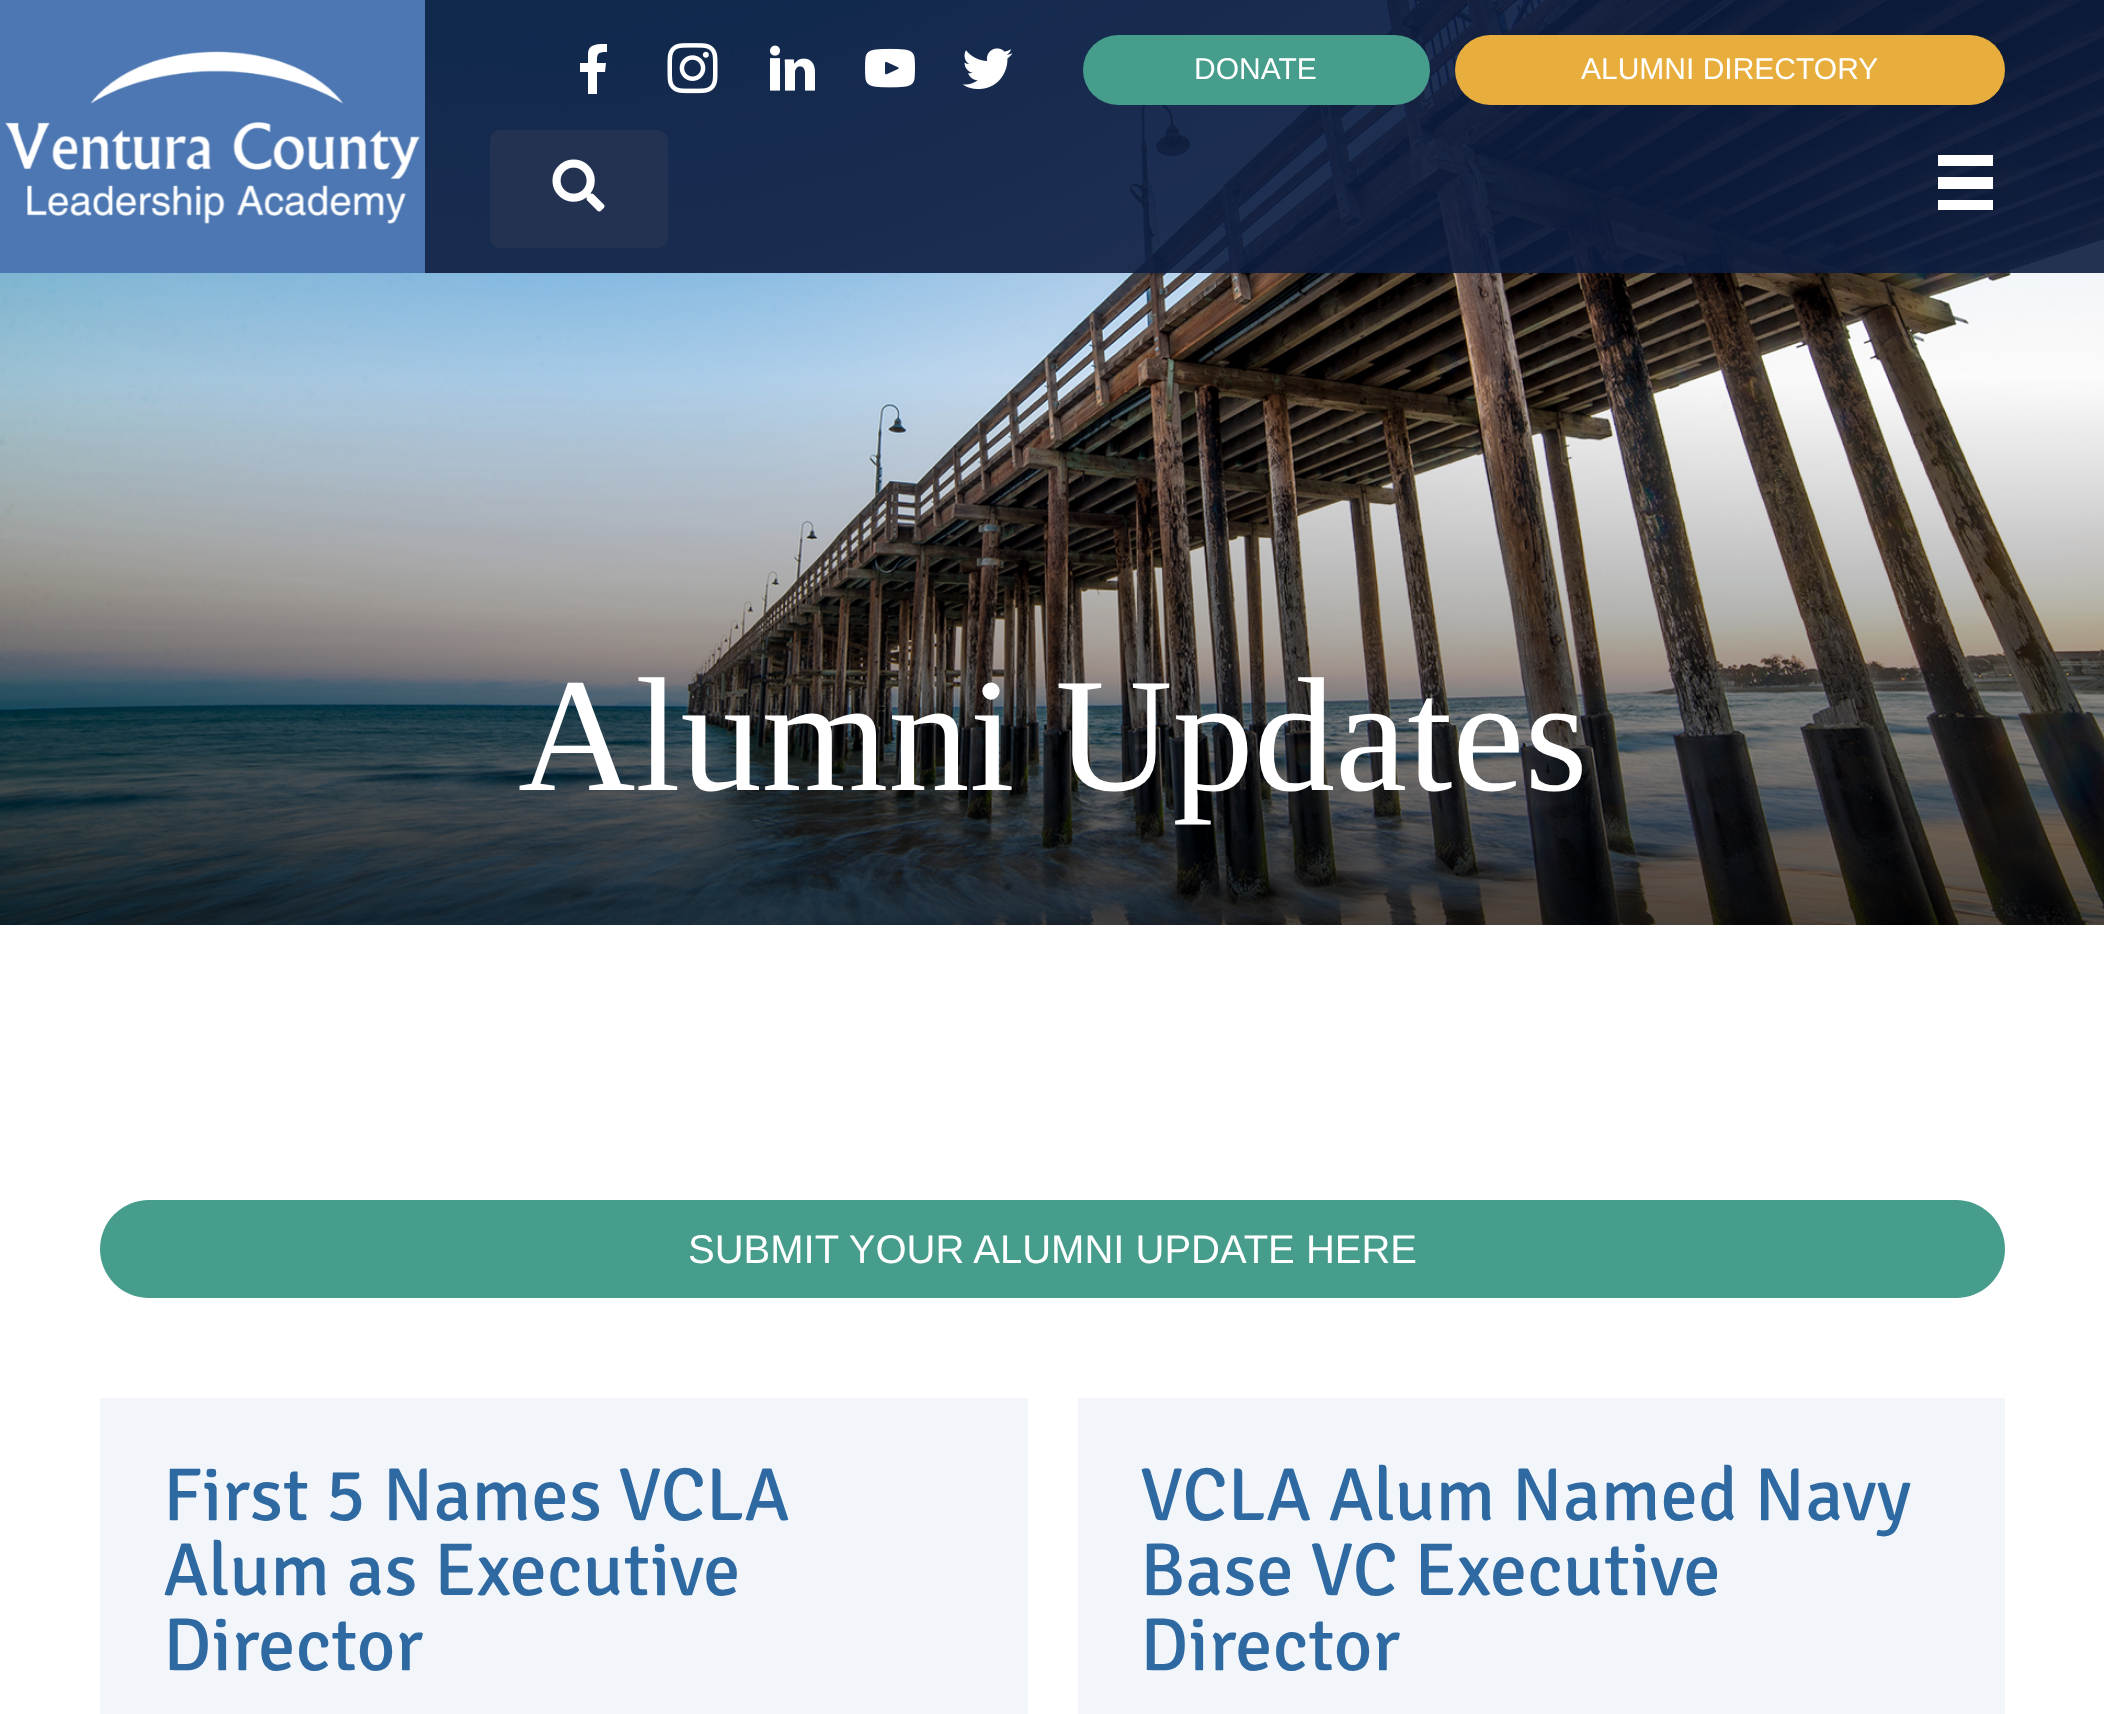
<!DOCTYPE html>
<meta charset="utf-8">
<style>body { margin: 0 } canvas { display: block }</style>
<canvas id="canvas" width="2104" height="1714"></canvas>
<script type="module">
  const canvas = document.getElementById("canvas");
  const g = canvas.getContext("2d");
  g.miterLimit = 4;
  g.fontKerning = "normal";
  function drawText(s, x, y, [font, color]) {
    g.font = font;
    g.fillStyle = color;
    g.fillText(s, x, y);
  }
  function fillBox(x, y, w, h, color) {
    g.fillStyle = color;
    g.fillRect(x, y, w, h);
  }
  function fillRounded(x, y, w, h, r, color) {
    g.fillStyle = color;
    g.beginPath();
    g.roundRect(x, y, w, h, r);
    g.fill();
  }
  async function drawPicture(src, x, y, w, h) {
    const img = new Image();
    img.src = src;
    await img.decode();
    g.drawImage(img, x, y, w, h);
  }

  const s1 = ["30px Liberation Sans", "#FFFFFF"];
  const s2 = ["162.5px Liberation Serif", "#FFFFFF"];
  const s3 = ["40px Liberation Sans", "#FFFFFF"];
  const s4 = ["300 75px Signika", "#2E69A2"];

  fillBox(0, 0, 2104, 1714, "#FFFFFF");
  await drawPicture("pic7.png", 0, 0, 2104, 925);
  fillBox(425, 0, 1679, 273, "rgba(13, 29, 63, 0.9)");
  fillBox(0, 0, 425, 273, "#4C77B2");
  await drawPicture("pic1.png", 5, 51, 415, 173);
  g.fillStyle = "#FFFFFF";
  g.beginPath();
  g.moveTo(605, 72);
  g.lineTo(597, 72);
  g.lineTo(597, 94);
  g.lineTo(588, 94);
  g.lineTo(588, 72);
  g.lineTo(580, 72);
  g.lineTo(580, 63);
  g.lineTo(588, 63);
  g.lineTo(588, 53);
  g.bezierCurveTo(589, 43, 599, 44, 607, 44);
  g.lineTo(607, 52);
  g.bezierCurveTo(597, 52, 597, 54, 597, 63);
  g.lineTo(606, 63);
  g.closePath();
  g.fill();
  await drawPicture("pic2.png", 667, 43, 51, 51);
  await drawPicture("pic3.png", 770, 45, 45, 46);
  await drawPicture("pic4.png", 865, 48, 50, 40);
  await drawPicture("pic5.png", 962, 48, 51, 42);
  fillRounded(1083, 35, 347, 70, 35, "#469D8B");
  drawText("DONATE", 1194, 79, s1);
  fillRounded(1455, 35, 550, 70, 35, "#E8AE3D");
  drawText("ALUMNI DIRECTORY", 1581, 79, s1);
  g.fillStyle = "#243252";
  g.beginPath();
  g.roundRect(491.5, 131.5, 175, 115, 8.5);
  g.fill();
  g.strokeStyle = "#243252";
  g.lineWidth = 3;
  g.stroke();
  await drawPicture("pic6.png", 552, 159, 53, 53);
  fillBox(1938, 155, 55, 11, "#FFFFFF");
  fillBox(1938, 177, 55, 12, "#FFFFFF");
  fillBox(1938, 200, 55, 10, "#FFFFFF");
  drawText("Alumni Updates", 518, 790, s2);
  fillRounded(100, 1200, 1905, 98, 49, "#469D8B");
  drawText("SUBMIT YOUR ALUMNI UPDATE HERE", 688, 1263, s3);
  fillBox(100, 1398, 928, 316, "#F2F6FA");
  drawText("First 5 Names VCLA", 163, 1520, s4);
  drawText("Alum as Executive", 163, 1595, s4);
  drawText("Director", 163, 1670, s4);
  fillBox(1078, 1398, 927, 316, "#F2F6FA");
  drawText("VCLA Alum Named Navy", 1140, 1520, s4);
  drawText("Base VC Executive", 1140, 1595, s4);
  drawText("Director", 1140, 1670, s4);
</script>
